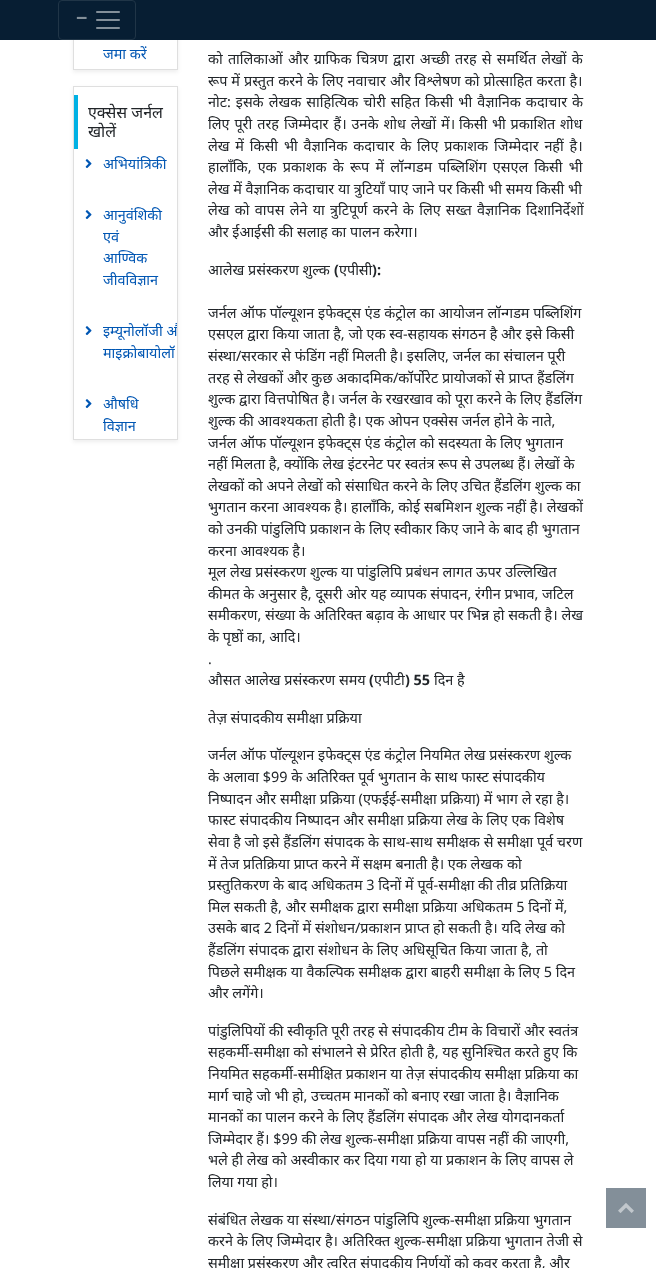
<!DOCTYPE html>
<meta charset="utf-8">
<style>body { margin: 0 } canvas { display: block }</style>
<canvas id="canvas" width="656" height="1268"></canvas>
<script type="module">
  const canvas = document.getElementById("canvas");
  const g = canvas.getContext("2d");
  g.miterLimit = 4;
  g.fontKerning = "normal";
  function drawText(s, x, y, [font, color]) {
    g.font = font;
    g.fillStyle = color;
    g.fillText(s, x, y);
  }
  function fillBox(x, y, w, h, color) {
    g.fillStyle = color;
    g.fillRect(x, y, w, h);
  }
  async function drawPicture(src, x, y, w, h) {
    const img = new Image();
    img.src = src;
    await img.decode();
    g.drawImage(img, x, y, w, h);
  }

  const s1 = ["bold 20px Open Sans", "#838F99"];
  const s2 = ["14.4px Noto Sans", "#0056B3"];
  const s3 = ["16px Noto Sans", "#212529"];
  const s4 = ["14.4px Noto Sans", "#212529"];
  const s5 = ["bold 14.4px Open Sans", "#212529"];
  const s6 = ["14.4px Open Sans", "#212529"];

  fillBox(0, 0, 656, 1268, "#FFFFFF");
  g.save();
  g.beginPath();
  g.moveTo(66, 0);
  g.lineTo(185, 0);
  g.lineTo(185, 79);
  g.lineTo(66, 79);
  g.closePath();
  g.moveTo(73, -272);
  g.lineTo(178, -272);
  g.lineTo(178, 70);
  g.lineTo(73, 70);
  g.closePath();
  g.clip("evenodd");
  g.fillStyle = "rgba(0, 0, 0, 0.07)";
  g.filter = "blur(2px)";
  g.beginPath();
  g.rect(73, -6, 105, 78);
  g.fill();
  g.filter = "none";
  g.restore();
  g.strokeStyle = "#DFDFDF";
  g.strokeRect(73.5, -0.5, 104, 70);
  fillBox(0, 0, 656, 40, "#071E33");
  g.beginPath();
  g.roundRect(58.5, 0.5, 77, 39, 3.5);
  g.strokeStyle = "#203547";
  g.stroke();
  drawText("−", 76, 25, s1);
  await drawPicture("pic1.png", 96, 11, 24, 18);
  drawText("जमा करें", 103, 59, s2);
  g.save();
  g.beginPath();
  g.moveTo(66, 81);
  g.lineTo(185, 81);
  g.lineTo(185, 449);
  g.lineTo(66, 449);
  g.closePath();
  g.moveTo(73, 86);
  g.lineTo(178, 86);
  g.lineTo(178, 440);
  g.lineTo(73, 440);
  g.closePath();
  g.clip("evenodd");
  g.fillStyle = "rgba(0, 0, 0, 0.07)";
  g.filter = "blur(2px)";
  g.beginPath();
  g.rect(73, 88, 105, 354);
  g.fill();
  g.filter = "none";
  g.restore();
  g.strokeStyle = "#DFDFDF";
  g.strokeRect(73.5, 86.5, 104, 353);
  fillBox(74, 95, 4, 54, "#00B1E4");
  drawText("एक्सेस जर्नल", 88, 118, s3);
  drawText("खोलें", 88, 137, s3);
  await drawPicture("pic2.png", 85, 159, 7, 9);
  drawText("अभियांत्रिकी", 103, 169, s2);
  await drawPicture("pic2.png", 85, 210, 7, 9);
  drawText("आनुवंशिकी", 103, 220, s2);
  drawText("एवं", 103, 242, s2);
  drawText("आण्विक", 103, 263, s2);
  drawText("जीवविज्ञान", 103, 285, s2);
  await drawPicture("pic2.png", 85, 326, 7, 9);
  g.save();
  g.beginPath();
  g.rect(74, 149, 103, 290);
  g.clip();
  drawText("इम्यूनोलॉजी औ", 103, 336, s2);
  g.restore();
  drawText("माइक्रोबायोलॉ", 103, 358, s2);
  await drawPicture("pic2.png", 85, 399, 7, 9);
  drawText("औषधि", 103, 409, s2);
  drawText("विज्ञान", 103, 431, s2);
  g.wordSpacing = "1.4px";
  drawText("को तालिकाओं और ग्राफिक चित्रण द्वारा अच्छी तरह से समर्थित लेखों के", 208, 64, s4);
  g.wordSpacing = "0.25px";
  drawText("रूप में प्रस्तुत करने के लिए नवाचार और विश्लेषण को प्रोत्साहित करता है।", 208, 86, s4);
  g.wordSpacing = "1.25px";
  drawText("नोट: इसके लेखक साहित्यिक चोरी सहित किसी भी वैज्ञानिक कदाचार के", 208, 107, s4);
  drawText("लिए पूरी तरह जिम्मेदार हैं। उनके शोध लेखों में।", 208, 129, s4);
  g.wordSpacing = "1px";
  drawText("किसी भी प्रकाशित शोध", 459, 129, s4);
  g.wordSpacing = "2.1px";
  drawText("लेख में किसी भी वैज्ञानिक कदाचार के लिए प्रकाशक जिम्मेदार नहीं है।", 208, 151, s4);
  g.wordSpacing = "2.4px";
  drawText("हालाँकि, एक प्रकाशक के रूप में लॉन्गडम पब्लिशिंग एसएल किसी भी", 208, 172, s4);
  g.wordSpacing = "0px";
  drawText("लेख में वैज्ञानिक कदाचार या त्रुटियाँ पाए जाने पर किसी भी समय किसी भी", 208, 194, s4);
  g.wordSpacing = "1.5px";
  drawText("लेख को वापस लेने या त्रुटिपूर्ण करने के लिए सख्त वैज्ञानिक दिशानिर्देशों", 208, 215, s4);
  g.wordSpacing = "0px";
  drawText("और ईआईसी की सलाह का पालन करेगा।", 208, 237, s4);
  drawText("आलेख प्रसंस्करण शुल्क", 208, 275, s4);
  drawText("(", 334, 275, s5);
  drawText("एपीसी", 339, 275, s4);
  drawText("):", 372, 275, s5);
  drawText("जर्नल ऑफ पॉल्यूशन इफेक्ट्स एंड कंट्रोल का आयोजन लॉन्गडम पब्लिशिंग", 208, 318, s4);
  drawText("एसएल द्वारा किया जाता है, जो एक स्व-सहायक संगठन है और इसे किसी", 208, 339, s4);
  drawText("संस्था/सरकार से फंडिंग नहीं मिलती है। इसलिए, जर्नल का संचालन पूरी", 208, 361, s4);
  drawText("तरह से लेखकों और कुछ अकादमिक/कॉर्पोरेट प्रायोजकों से प्राप्त हैंडलिंग", 208, 383, s4);
  drawText("शुल्क द्वारा वित्तपोषित है। जर्नल के रखरखाव को पूरा करने के लिए हैंडलिंग", 208, 404, s4);
  drawText("शुल्क की आवश्यकता होती है। एक ओपन एक्सेस जर्नल होने के नाते,", 208, 426, s4);
  drawText("जर्नल ऑफ पॉल्यूशन इफेक्ट्स एंड कंट्रोल को सदस्यता के लिए भुगतान", 208, 448, s4);
  drawText("नहीं मिलता है, क्योंकि लेख इंटरनेट पर स्वतंत्र रूप से उपलब्ध हैं। लेखों के", 208, 469, s4);
  drawText("लेखकों को अपने लेखों को संसाधित करने के लिए उचित हैंडलिंग शुल्क का", 208, 491, s4);
  drawText("भुगतान करना आवश्यक है। हालाँकि, कोई सबमिशन शुल्क नहीं है। लेखकों", 208, 512, s4);
  drawText("को उनकी पांडुलिपि प्रकाशन के लिए स्वीकार किए जाने के बाद ही भुगतान", 208, 534, s4);
  drawText("करना आवश्यक है।", 208, 556, s4);
  drawText("मूल लेख प्रसंस्करण शुल्क या पांडुलिपि प्रबंधन लागत ऊपर उल्लिखित", 208, 577, s4);
  drawText("कीमत के अनुसार है, दूसरी ओर यह व्यापक संपादन, रंगीन प्रभाव, जटिल", 208, 599, s4);
  drawText("समीकरण, संख्या के अतिरिक्त बढ़ाव के आधार पर भिन्न हो सकती है। लेख", 208, 620, s4);
  drawText("के पृष्ठों का, आदि।", 208, 642, s4);
  drawText(".", 208, 664, s6);
  drawText("औसत आलेख प्रसंस्करण समय", 208, 685, s4);
  drawText("(", 369, 685, s5);
  drawText("एपीटी", 374, 685, s4);
  drawText(") 55", 405, 685, s5);
  drawText("दिन है", 434, 685, s4);
  drawText("तेज़ संपादकीय समीक्षा प्रक्रिया", 208, 723, s4);
  drawText("जर्नल ऑफ पॉल्यूशन इफेक्ट्स एंड कंट्रोल नियमित लेख प्रसंस्करण शुल्क", 208, 760, s4);
  drawText("के अलावा $99 के अतिरिक्त पूर्व भुगतान के साथ फास्ट संपादकीय", 208, 782, s4);
  drawText("निष्पादन और समीक्षा प्रक्रिया (एफईई-समीक्षा प्रक्रिया) में भाग ले रहा है।", 208, 804, s4);
  drawText("फास्ट संपादकीय निष्पादन और समीक्षा प्रक्रिया लेख के लिए एक विशेष", 208, 825, s4);
  drawText("सेवा है जो इसे हैंडलिंग संपादक के साथ-साथ समीक्षक से समीक्षा पूर्व चरण", 208, 847, s4);
  drawText("में तेज प्रतिक्रिया प्राप्त करने में सक्षम बनाती है। एक लेखक को", 208, 869, s4);
  drawText("प्रस्तुतिकरण के बाद अधिकतम 3 दिनों में पूर्व-समीक्षा की तीव्र प्रतिक्रिया", 208, 890, s4);
  drawText("मिल सकती है, और समीक्षक द्वारा समीक्षा प्रक्रिया अधिकतम 5 दिनों में,", 208, 912, s4);
  drawText("उसके बाद 2 दिनों में संशोधन/प्रकाशन प्राप्त हो सकती है। यदि लेख को", 208, 933, s4);
  drawText("हैंडलिंग संपादक द्वारा संशोधन के लिए अधिसूचित किया जाता है, तो", 208, 955, s4);
  drawText("पिछले समीक्षक या वैकल्पिक समीक्षक द्वारा बाहरी समीक्षा के लिए 5 दिन", 208, 977, s4);
  drawText("और लगेंगे।", 208, 998, s4);
  drawText("पांडुलिपियों की स्वीकृति पूरी तरह से संपादकीय टीम के विचारों और स्वतंत्र", 208, 1036, s4);
  drawText("सहकर्मी-समीक्षा को संभालने से प्रेरित होती है, यह सुनिश्चित करते हुए कि", 208, 1057, s4);
  drawText("नियमित सहकर्मी-समीक्षित प्रकाशन या तेज़ संपादकीय समीक्षा प्रक्रिया का", 208, 1079, s4);
  drawText("मार्ग चाहे जो भी हो, उच्चतम मानकों को बनाए रखा जाता है। वैज्ञानिक", 208, 1101, s4);
  drawText("मानकों का पालन करने के लिए हैंडलिंग संपादक और लेख योगदानकर्ता", 208, 1122, s4);
  drawText("जिम्मेदार हैं। $99 की लेख शुल्क-समीक्षा प्रक्रिया वापस नहीं की जाएगी,", 208, 1144, s4);
  drawText("भले ही लेख को अस्वीकार कर दिया गया हो या प्रकाशन के लिए वापस ले", 208, 1165, s4);
  drawText("लिया गया हो।", 208, 1187, s4);
  drawText("संबंधित लेखक या संस्था/संगठन पांडुलिपि शुल्क-समीक्षा प्रक्रिया भुगतान", 208, 1225, s4);
  drawText("करने के लिए जिम्मेदार है। अतिरिक्त शुल्क-समीक्षा प्रक्रिया भुगतान तेजी से", 208, 1246, s4);
  drawText("समीक्षा प्रसंस्करण और त्वरित संपादकीय निर्णयों को कवर करता है, और", 208, 1268, s4);
  fillBox(606, 1188, 40, 40, "#838F99");
  await drawPicture("pic3.png", 618, 1203, 16, 10);
</script>
